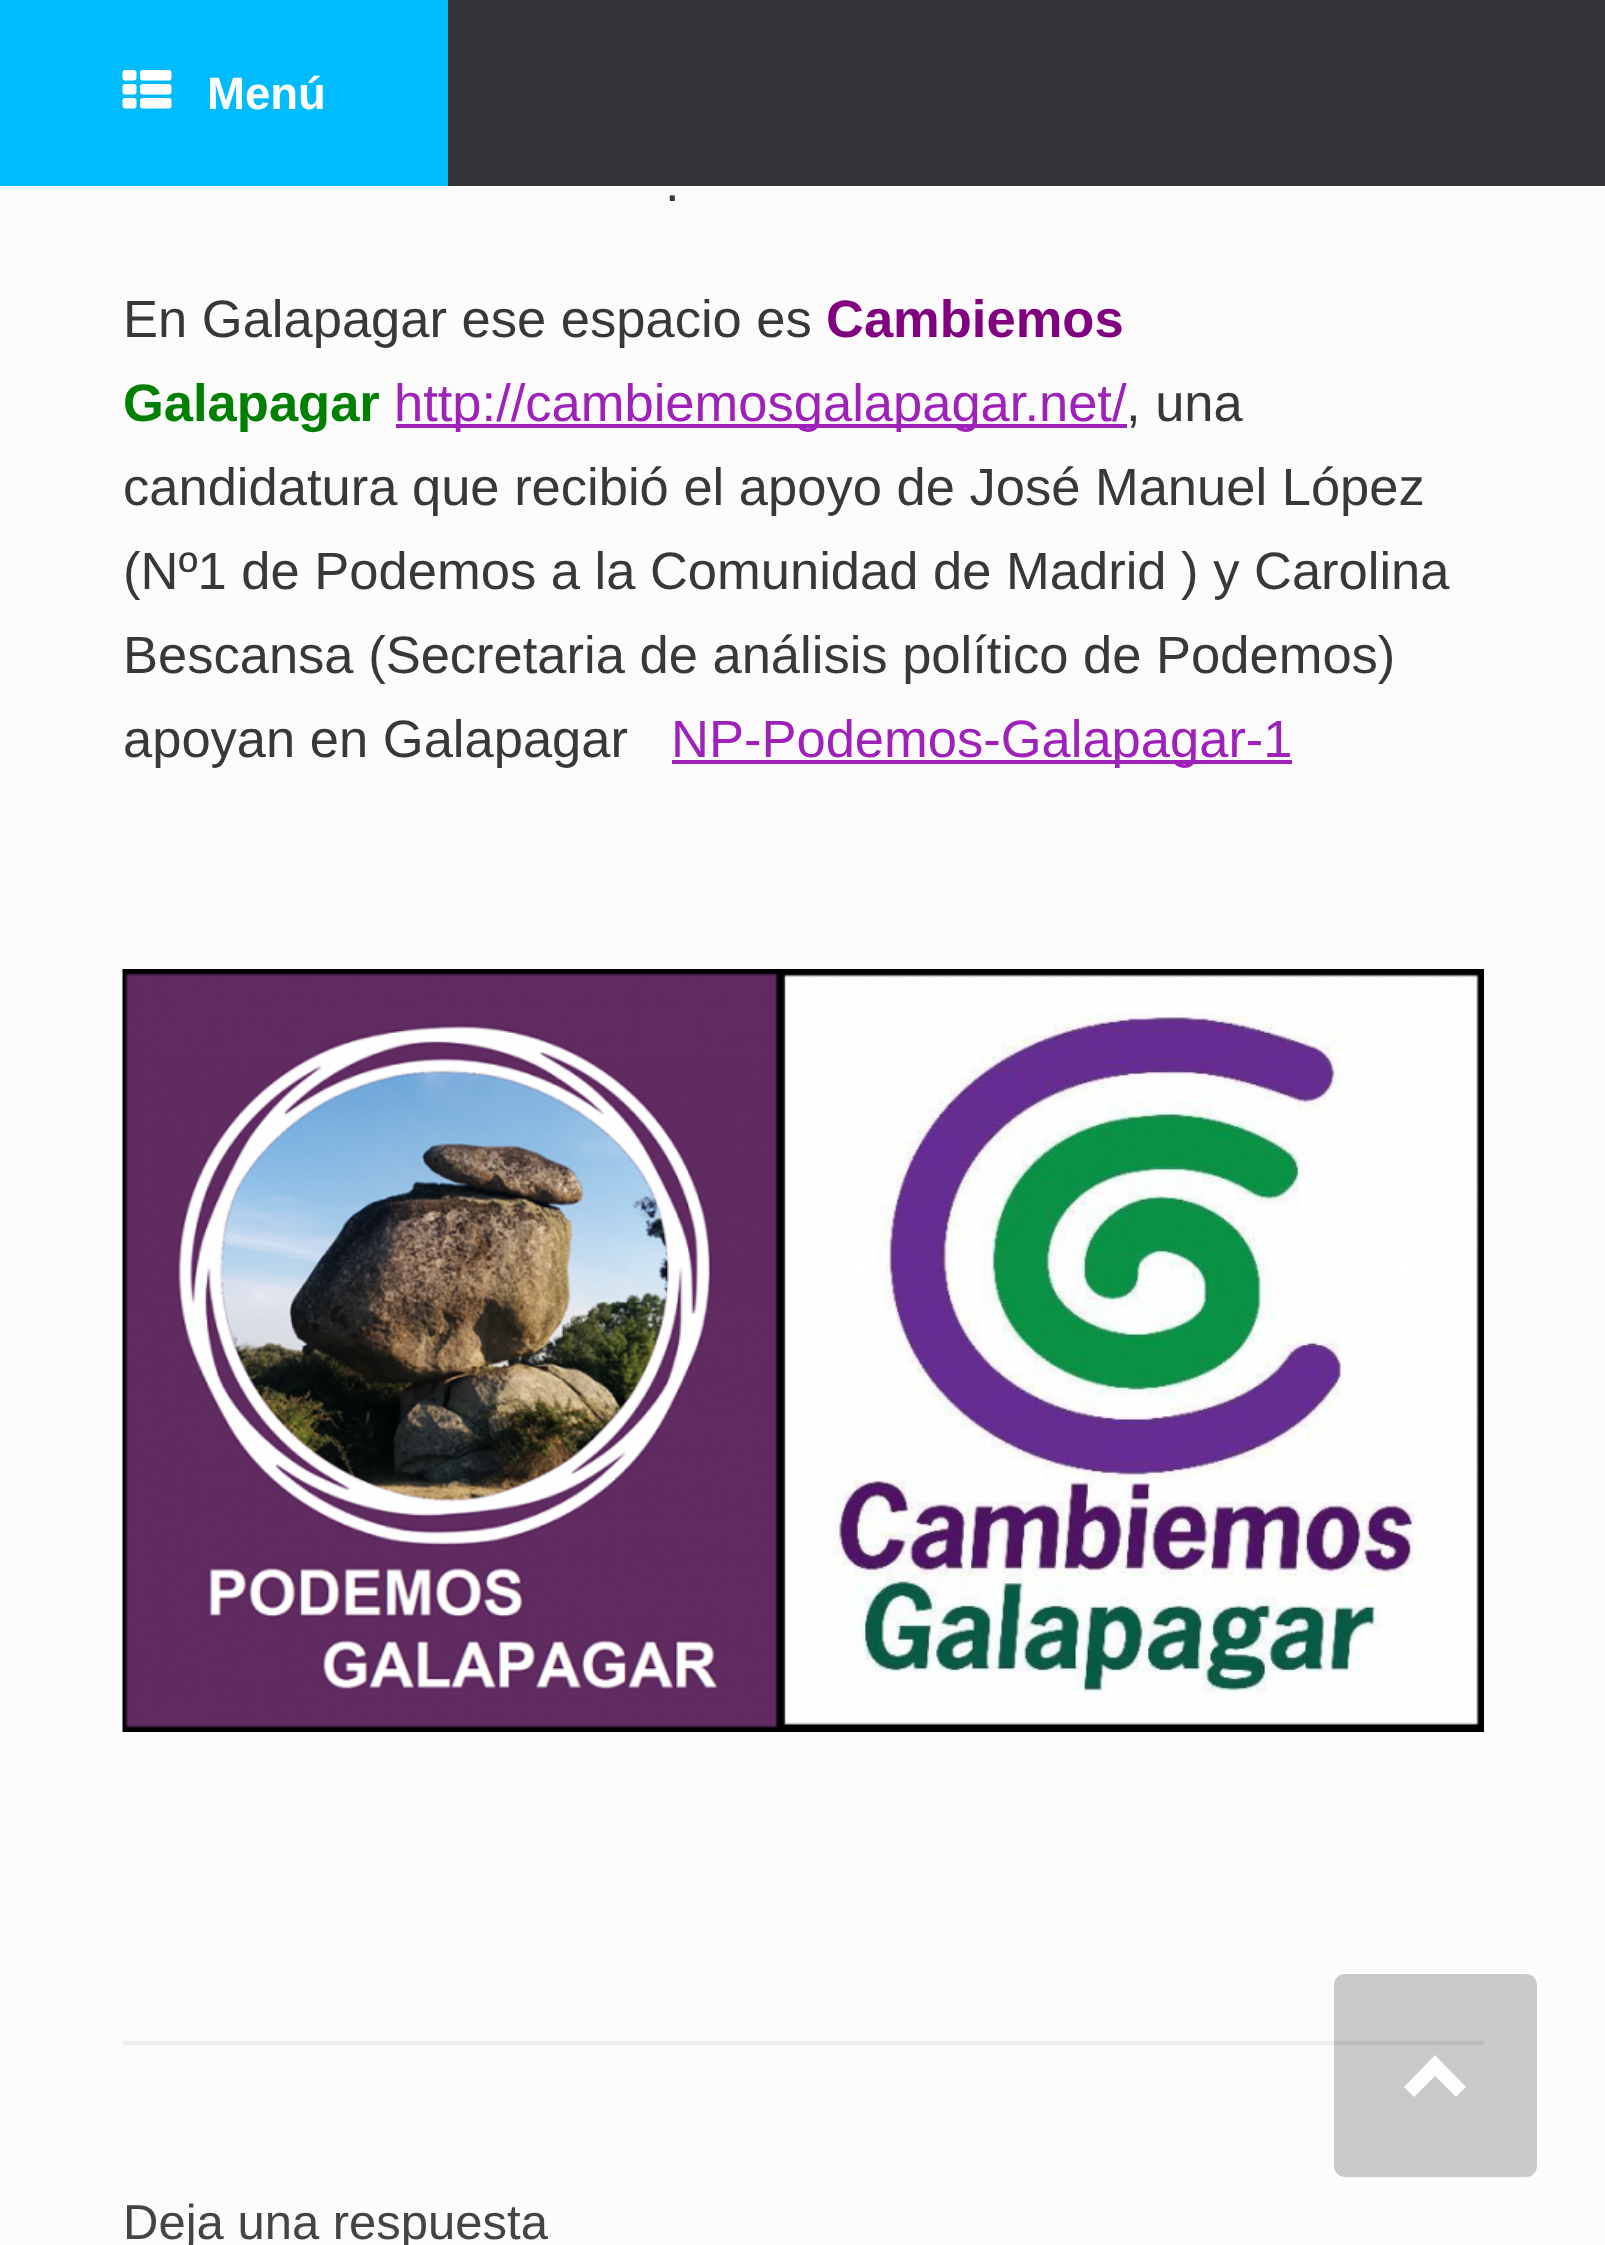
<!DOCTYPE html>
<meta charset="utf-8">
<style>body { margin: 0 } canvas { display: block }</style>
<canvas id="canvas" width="1605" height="2245"></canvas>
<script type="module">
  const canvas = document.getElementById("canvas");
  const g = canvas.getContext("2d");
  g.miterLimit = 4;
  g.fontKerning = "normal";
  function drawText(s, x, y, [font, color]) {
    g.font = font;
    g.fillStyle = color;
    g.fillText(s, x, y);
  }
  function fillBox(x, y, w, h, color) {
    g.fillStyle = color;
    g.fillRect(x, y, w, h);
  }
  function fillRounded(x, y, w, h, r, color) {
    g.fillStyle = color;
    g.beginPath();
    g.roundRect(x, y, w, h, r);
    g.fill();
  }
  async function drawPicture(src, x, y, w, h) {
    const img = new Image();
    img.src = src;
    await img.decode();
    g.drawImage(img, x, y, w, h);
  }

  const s1 = ["bold 45.5px Liberation Sans", "#FFFFFF"];
  const s2 = ["52.5px Liberation Sans", "#383838"];
  const s3 = ["bold 52.5px Liberation Sans", "#800080"];
  const s4 = ["bold 52.5px Liberation Sans", "#008000"];
  const s5 = ["52.5px Liberation Sans", "#9E21BA"];
  const s6 = ["49px Liberation Sans", "#444444"];

  fillBox(0, 0, 1605, 2245, "#FCFCFC");
  fillBox(448, 0, 1157, 186, "#343538");
  fillBox(0, 0, 448, 186, "#00BCFF");
  await drawPicture("pic1.png", 122, 70, 50, 39);
  drawText("Menú", 207, 109, s1);
  fillBox(123, 2041, 1361, 4, "#EEEEEE");
  drawText(".", 665, 201, s2);
  drawText("En Galapagar ese espacio es", 123, 337, s2);
  drawText("Cambiemos", 826, 337, s3);
  drawText("Galapagar", 123, 421, s4);
  fillBox(396, 424, 731, 4, "#9E21BA");
  drawText("http://cambiemosgalapagar.net/", 394, 421, s5);
  drawText(", una", 1126, 421, s2);
  drawText("candidatura que recibió el apoyo de José Manuel López", 123, 505, s2);
  drawText("(Nº1 de Podemos a la Comunidad de Madrid ) y Carolina", 123, 589, s2);
  drawText("Bescansa (Secretaria de análisis político de Podemos)", 123, 673, s2);
  drawText("apoyan en Galapagar", 123, 757, s2);
  fillBox(672, 760, 620, 4, "#9E21BA");
  drawText("NP-Podemos-Galapagar-1", 671, 757, s5);
  await drawPicture("pic2.png", 122, 969, 1362, 763);
  drawText("Deja una respuesta", 123, 2239, s6);
  fillRounded(1334, 1974, 203, 203, 11, "rgba(0, 0, 0, 0.2)");
  g.fillStyle = "#FDFDFD";
  g.beginPath();
  g.moveTo(1466, 2087);
  g.lineTo(1435, 2055);
  g.lineTo(1404, 2087);
  g.lineTo(1414, 2097);
  g.lineTo(1435, 2076);
  g.lineTo(1456, 2097);
  g.closePath();
  g.fill();
</script>
